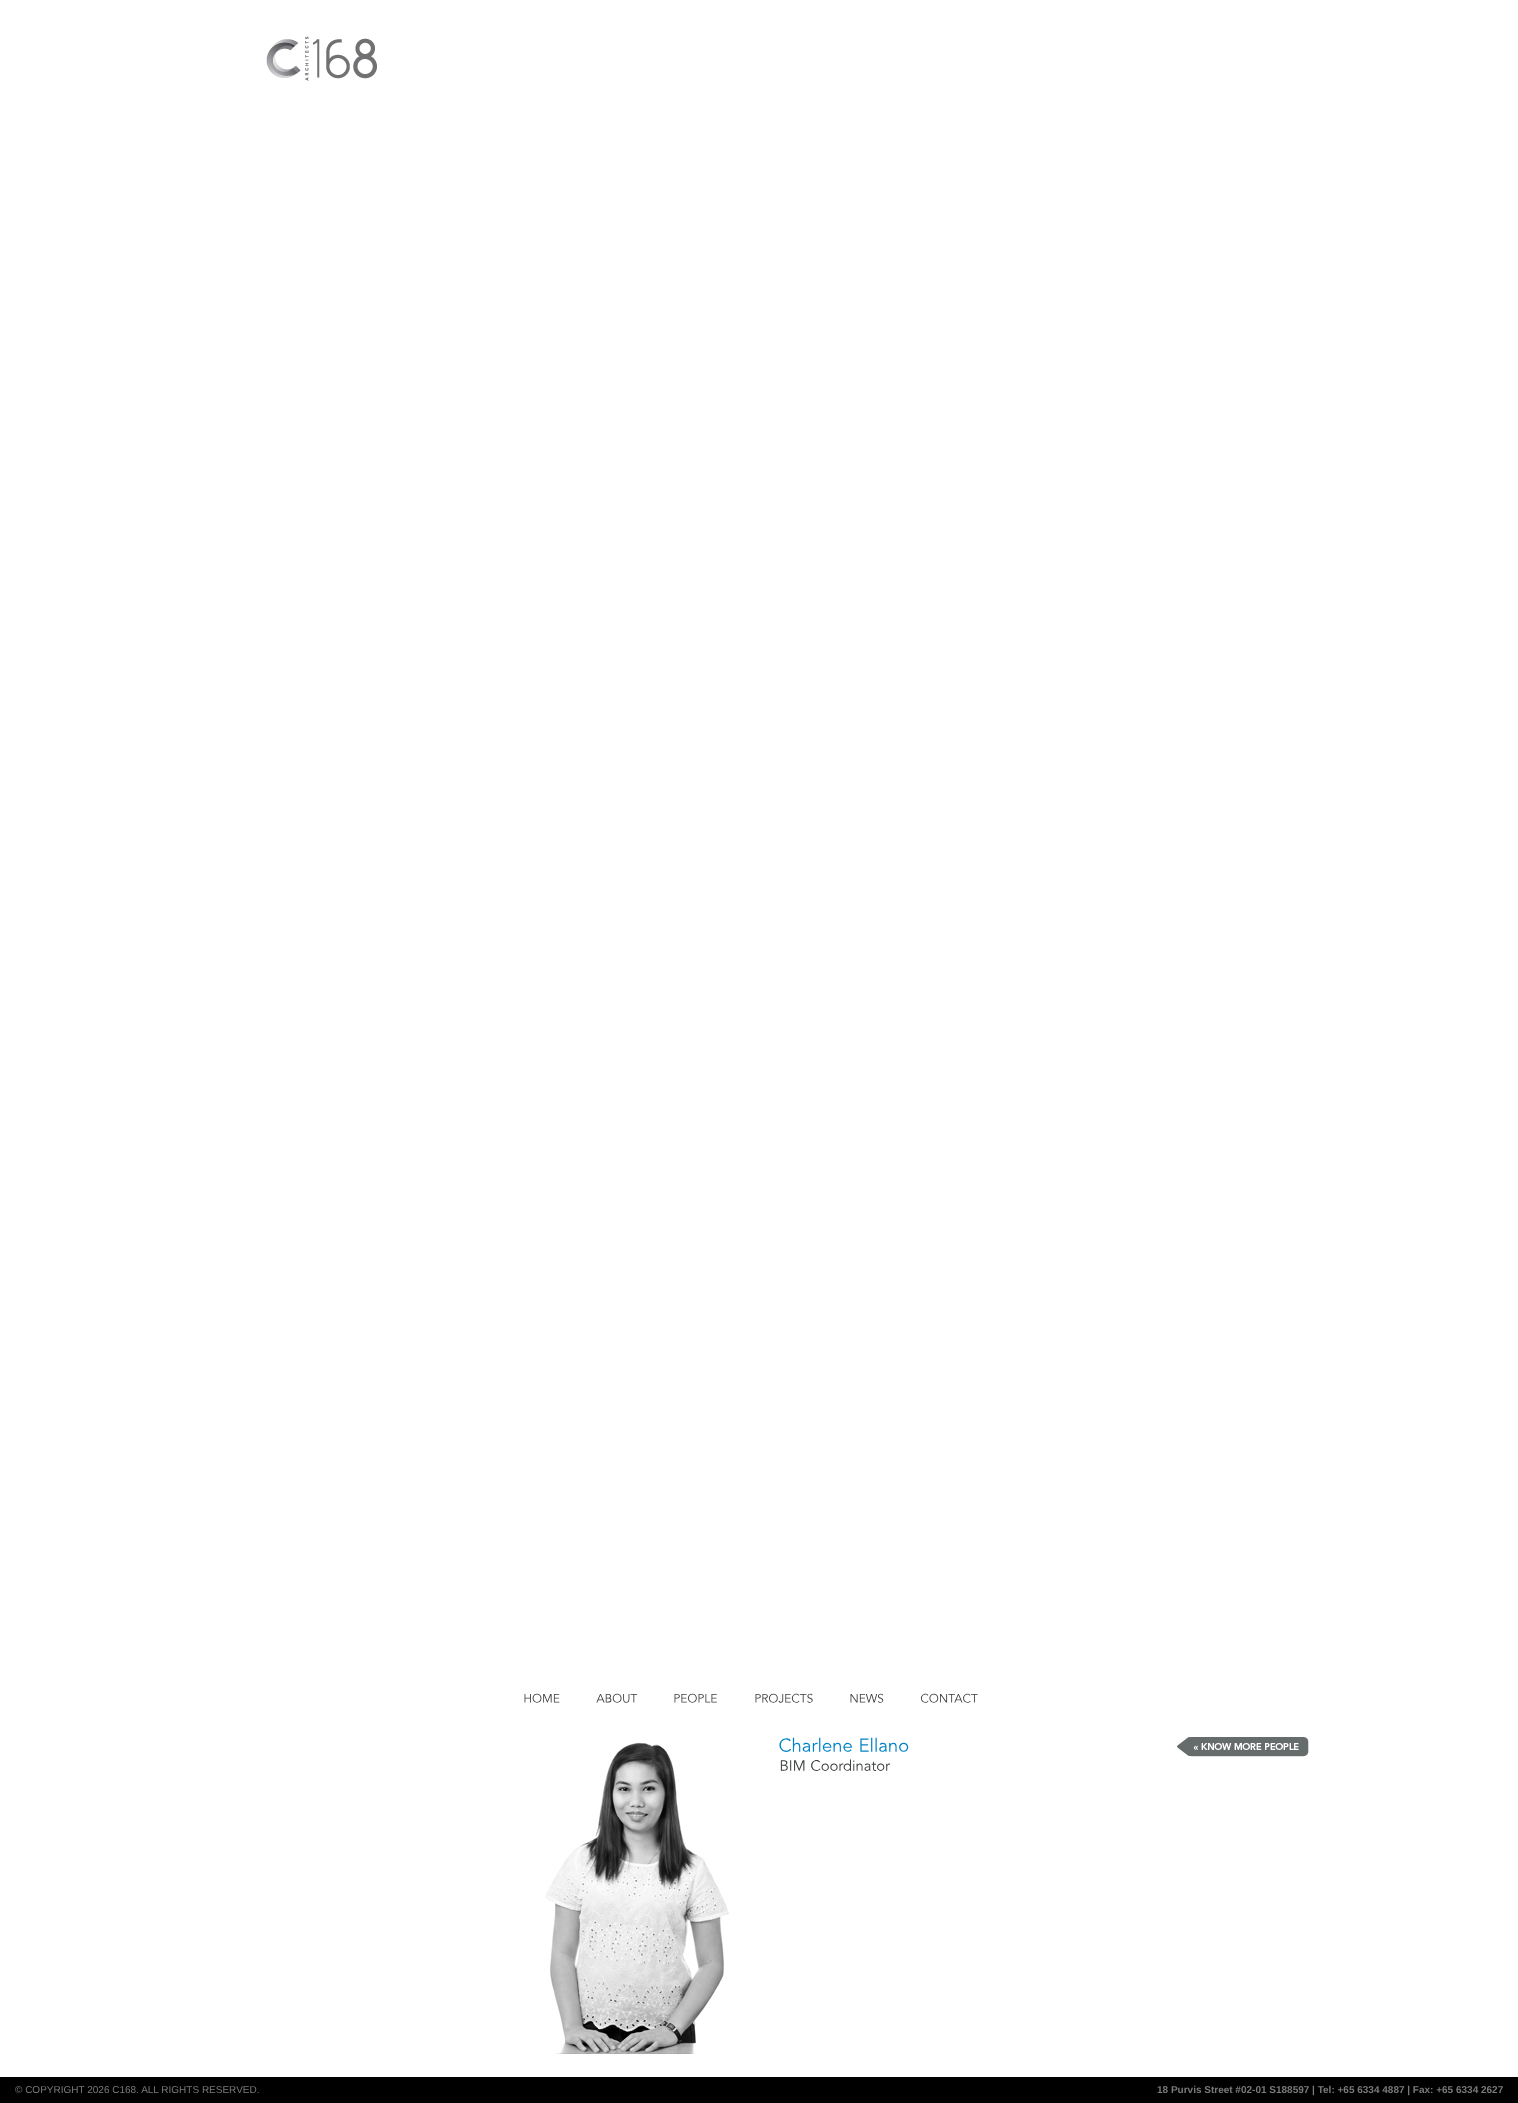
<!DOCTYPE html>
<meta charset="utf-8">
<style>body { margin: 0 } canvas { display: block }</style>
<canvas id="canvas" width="1518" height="2103"></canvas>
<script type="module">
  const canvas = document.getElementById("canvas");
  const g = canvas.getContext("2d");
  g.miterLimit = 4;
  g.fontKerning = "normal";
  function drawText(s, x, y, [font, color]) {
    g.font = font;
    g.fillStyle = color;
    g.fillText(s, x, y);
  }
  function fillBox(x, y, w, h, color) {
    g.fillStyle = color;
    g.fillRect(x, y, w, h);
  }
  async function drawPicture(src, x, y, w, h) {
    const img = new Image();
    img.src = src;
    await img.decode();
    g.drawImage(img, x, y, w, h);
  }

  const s1 = ["10px Liberation Sans", "#7A7A7A"];
  const s2 = ["bold 10px Liberation Sans", "#7A7A7A"];

  fillBox(0, 0, 1518, 2103, "#FFFFFF");
  await drawPicture("pic1.png", 266, 36, 111, 45);
  await drawPicture("pic2.png", 524, 1693, 36, 10);
  await drawPicture("pic3.png", 596, 1693, 42, 10);
  await drawPicture("pic4.png", 674, 1693, 43, 10);
  await drawPicture("pic5.png", 755, 1693, 58, 10);
  await drawPicture("pic6.png", 850, 1693, 34, 10);
  await drawPicture("pic7.png", 920, 1693, 58, 10);
  await drawPicture("pic8.png", 545, 1742, 184, 312);
  await drawPicture("pic9.png", 779, 1737, 73, 15);
  await drawPicture("pic10.png", 860, 1737, 49, 15);
  await drawPicture("pic11.png", 780, 1760, 25, 11);
  await drawPicture("pic12.png", 811, 1759, 80, 12);
  await drawPicture("pic13.png", 1177, 1737, 132, 20);
  fillBox(0, 2077, 1518, 26, "#000000");
  drawText("© COPYRIGHT 2026 C168. ALL RIGHTS RESERVED.", 15, 2093, s1);
  drawText("18 Purvis Street #02-01 S188597 | Tel: +65 6334 4887 | Fax: +65 6334 2627", 1157, 2093, s2);
</script>
